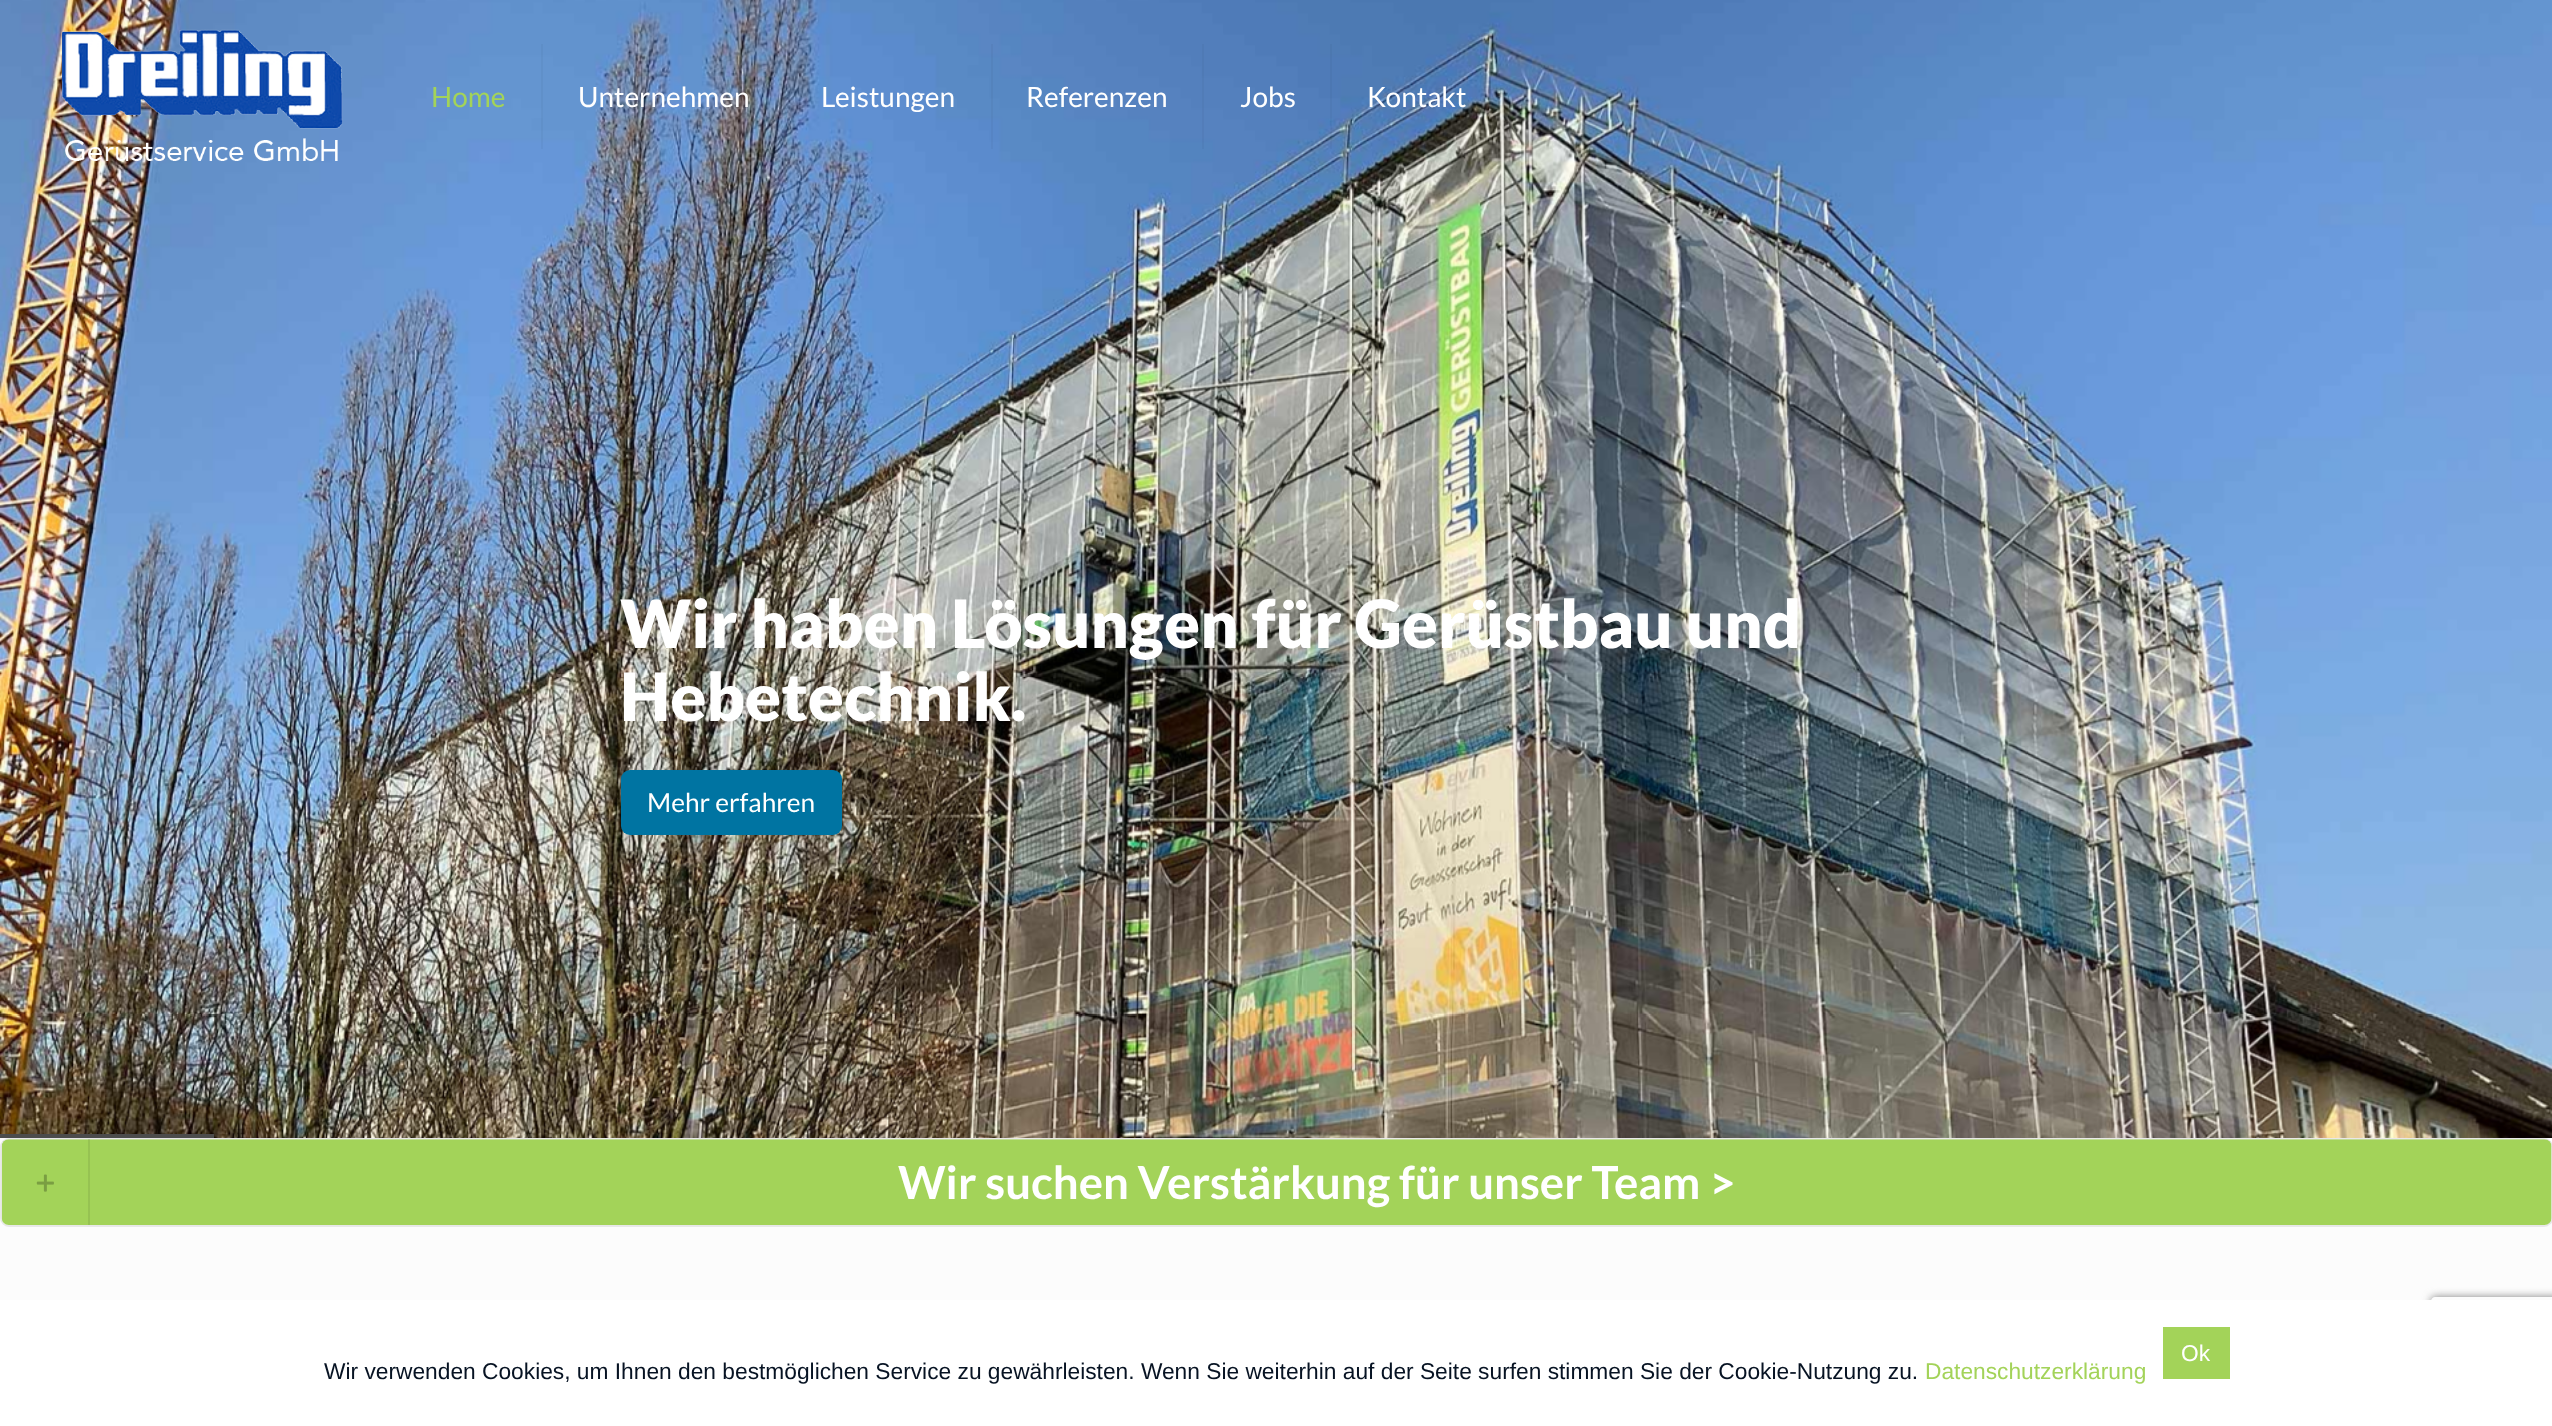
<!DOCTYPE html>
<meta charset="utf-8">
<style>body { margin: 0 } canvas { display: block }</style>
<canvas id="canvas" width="2552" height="1426"></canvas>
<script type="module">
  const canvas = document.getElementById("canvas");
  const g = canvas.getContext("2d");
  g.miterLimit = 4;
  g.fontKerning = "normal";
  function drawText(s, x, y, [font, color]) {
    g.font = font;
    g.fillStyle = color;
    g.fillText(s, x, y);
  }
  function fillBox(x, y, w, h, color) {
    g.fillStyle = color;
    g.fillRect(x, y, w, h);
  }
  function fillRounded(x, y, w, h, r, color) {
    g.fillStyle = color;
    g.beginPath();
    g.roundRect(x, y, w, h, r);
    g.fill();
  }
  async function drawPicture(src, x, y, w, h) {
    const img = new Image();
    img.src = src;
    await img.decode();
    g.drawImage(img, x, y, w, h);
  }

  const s1 = ["28px Lato", "#A3D359"];
  const s2 = ["28px Lato", "#FFFFFF"];
  const s3 = ["900 66.5px Lato", "#FFFFFF"];
  const s4 = ["26.25px Lato", "#FFFFFF"];
  const s5 = ["bold 45.5px Lato", "#FFFFFF"];
  const s6 = ["22.75px Liberation Sans", "#FFFFFF"];
  const s7 = ["22.75px Liberation Sans", "#071323"];
  const s8 = ["22.75px Liberation Sans", "#A3D359"];

  fillBox(0, 0, 2552, 1426, "#FCFCFC");
  await drawPicture("pic2.png", 0, 0, 2552, 1138);
  await drawPicture("pic1.png", 61, 29, 282, 132);
  fillBox(541, 44, 2, 105, "rgba(0, 0, 0, 0.03)");
  drawText("Home", 431, 107, s1);
  fillBox(784, 44, 2, 105, "rgba(0, 0, 0, 0.03)");
  drawText("Unternehmen", 578, 107, s2);
  fillBox(991, 44, 2, 105, "rgba(0, 0, 0, 0.03)");
  drawText("Leistungen", 821, 107, s2);
  fillBox(1202, 44, 2, 105, "rgba(0, 0, 0, 0.03)");
  drawText("Referenzen", 1026, 107, s2);
  fillBox(1330, 44, 2, 105, "rgba(0, 0, 0, 0.03)");
  drawText("Jobs", 1240, 107, s2);
  drawText("Kontakt", 1367, 107, s2);
  drawText("Wir haben Lösungen für Gerüstbau und", 620, 648, s3);
  drawText("Hebetechnik.", 620, 721, s3);
  fillRounded(621, 770, 221, 65, 9, "#0074A2");
  drawText("Mehr erfahren", 647, 812, s4);
  fillBox(0, 1134, 214, 4, "#4C4C4C");
  g.beginPath();
  g.roundRect(1, 1139, 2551, 87, 8);
  g.strokeStyle = "#E8E8E8";
  g.lineWidth = 2;
  g.stroke();
  await drawPicture("pic3.png", 1, 1139, 2551, 86);
  await drawPicture("pic4.png", 36, 1174, 18, 18);
  fillBox(88, 1139, 2, 86, "rgba(0, 0, 0, 0.08)");
  drawText("Wir suchen Verstärkung für unser Team >", 898, 1199, s5);
  g.save();
  g.beginPath();
  g.moveTo(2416, 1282);
  g.lineTo(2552, 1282);
  g.lineTo(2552, 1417);
  g.lineTo(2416, 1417);
  g.closePath();
  g.moveTo(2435, 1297);
  g.lineTo(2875, 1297);
  g.bezierCurveTo(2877, 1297, 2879, 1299, 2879, 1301);
  g.lineTo(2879, 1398);
  g.bezierCurveTo(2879, 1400, 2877, 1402, 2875, 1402);
  g.lineTo(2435, 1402);
  g.bezierCurveTo(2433, 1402, 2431, 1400, 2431, 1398);
  g.lineTo(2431, 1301);
  g.bezierCurveTo(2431, 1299, 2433, 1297, 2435, 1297);
  g.closePath();
  g.clip("evenodd");
  g.fillStyle = "#808080";
  g.filter = "blur(4.5px)";
  g.beginPath();
  g.roundRect(2431, 1297, 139, 105, 4);
  g.fill();
  g.filter = "none";
  g.restore();
  fillBox(0, 1300, 2552, 126, "#FFFFFF");
  fillBox(2163, 1327, 67, 52, "#A3D359");
  drawText("Ok", 2181, 1361, s6);
  drawText("Wir verwenden Cookies, um Ihnen den bestmöglichen Service zu gewährleisten. Wenn Sie weiterhin auf der Seite surfen stimmen Sie der Cookie-Nutzung zu.", 324, 1379, s7);
  drawText("Datenschutzerklärung", 1925, 1379, s8);
</script>
